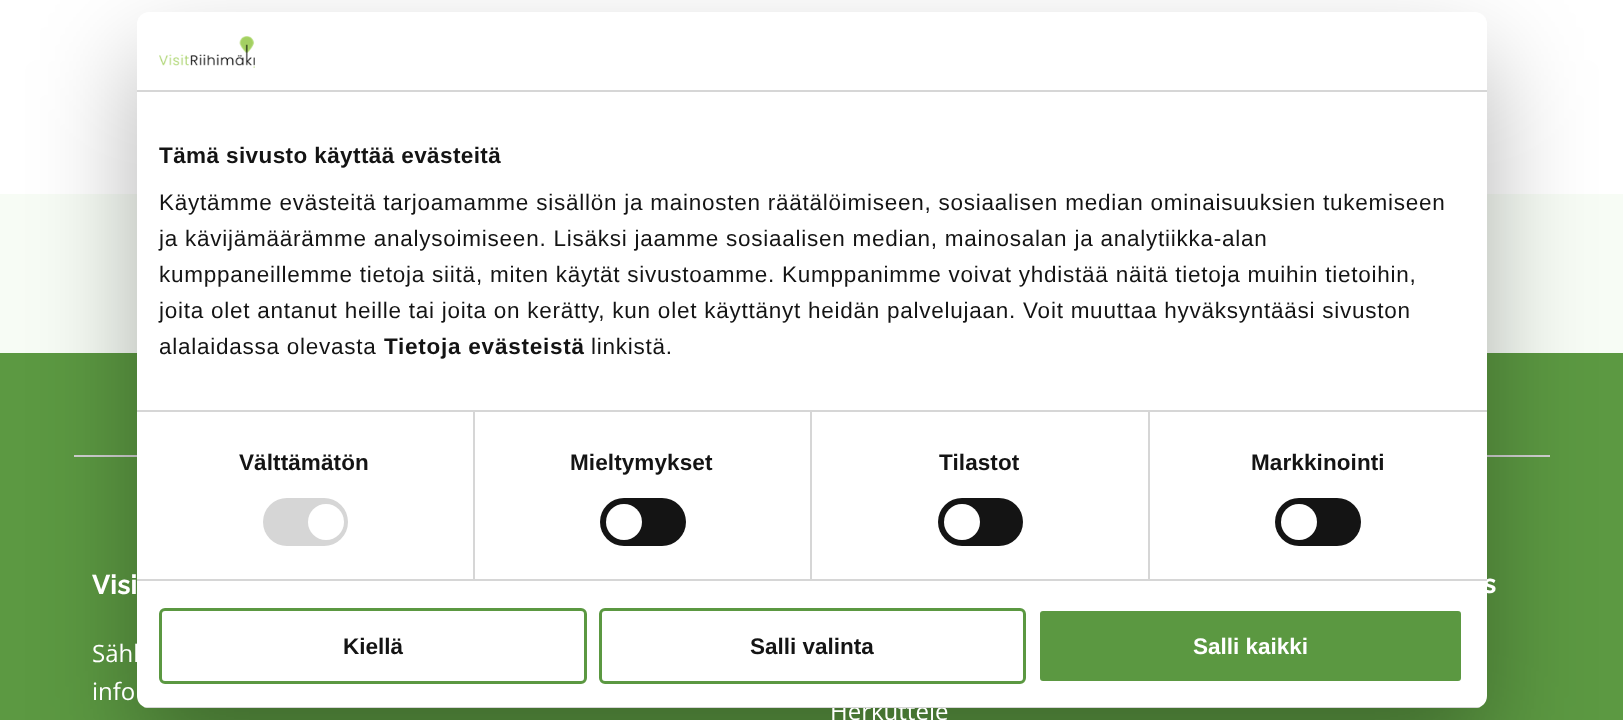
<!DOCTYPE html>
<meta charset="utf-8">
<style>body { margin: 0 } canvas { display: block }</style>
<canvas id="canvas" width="1623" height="720"></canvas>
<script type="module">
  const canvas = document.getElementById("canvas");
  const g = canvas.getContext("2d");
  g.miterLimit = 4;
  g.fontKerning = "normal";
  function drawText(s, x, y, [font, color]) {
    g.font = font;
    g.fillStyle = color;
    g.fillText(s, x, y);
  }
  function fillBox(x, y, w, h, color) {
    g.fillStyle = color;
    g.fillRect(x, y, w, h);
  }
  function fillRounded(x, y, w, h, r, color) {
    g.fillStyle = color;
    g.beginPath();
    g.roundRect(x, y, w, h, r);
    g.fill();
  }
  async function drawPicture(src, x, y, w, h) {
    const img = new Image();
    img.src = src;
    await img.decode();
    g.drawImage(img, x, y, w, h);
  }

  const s1 = ["bold 22.5px Liberation Sans", "#141414"];
  const s2 = ["22.5px Liberation Sans", "#141414"];
  const s3 = ["bold 27px Raleway", "#FFFFFF"];
  const s4 = ["24px Open Sans", "#FFFFFF"];
  const s5 = ["bold 22.5px Liberation Sans", "#FFFFFF"];

  fillBox(0, 0, 1623, 720, "#FFFFFF");
  fillBox(0, 353, 1623, 367, "#5C9942");
  fillBox(0, 194, 1623, 159, "#F7FCF5");
  fillBox(74, 455, 1476, 2, "#D1D1D1");
  g.fillStyle = "rgba(0, 0, 0, 0.3)";
  g.filter = "blur(51px)";
  g.beginPath();
  g.roundRect(137, 60, 1350, 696, 12);
  g.fill();
  g.filter = "none";
  fillRounded(137, 12, 1350, 696, 12, "#FFFFFF");
  fillBox(137, 90, 1350, 2, "#D6D6D6");
  await drawPicture("pic1.png", 159, 36, 96, 32);
  fillBox(473, 411, 2, 168, "#D6D6D6");
  fillBox(810, 411, 2, 168, "#D6D6D6");
  fillBox(1148, 411, 2, 168, "#D6D6D6");
  fillBox(137, 410, 1350, 2, "#D6D6D6");
  g.letterSpacing = "0.4px";
  drawText("Tämä sivusto käyttää evästeitä", 159, 163, s1);
  g.letterSpacing = "0.75px";
  drawText("Käytämme evästeitä tarjoamamme sisällön ja mainosten räätälöimiseen, sosiaalisen median ominaisuuksien tukemiseen", 159, 210, s2);
  drawText("ja kävijämäärämme analysoimiseen. Lisäksi jaamme sosiaalisen median, mainosalan ja analytiikka-alan", 159, 246, s2);
  drawText("kumppaneillemme tietoja siitä, miten käytät sivustoamme. Kumppanimme voivat yhdistää näitä tietoja muihin tietoihin,", 159, 282, s2);
  drawText("joita olet antanut heille tai joita on kerätty, kun olet käyttänyt heidän palvelujaan. Voit muuttaa hyväksyntääsi sivuston", 159, 318, s2);
  drawText("alalaidassa olevasta", 159, 354, s2);
  drawText("Tietoja evästeistä", 384, 354, s1);
  drawText("linkistä.", 591, 354, s2);
  g.letterSpacing = "0px";
  drawText("s", 1483, 593, s3);
  fillBox(137, 579, 1350, 2, "#D6D6D6");
  g.letterSpacing = "0.1px";
  drawText("Välttämätön", 239, 470, s1);
  fillRounded(263, 498, 85, 48, 24, "#D6D6D6");
  g.fillStyle = "#FFFFFF";
  g.beginPath();
  g.arc(326, 522, 18, 0, Math.PI * 2);
  g.fill();
  drawText("Mieltymykset", 570, 470, s1);
  fillRounded(600, 498, 86, 48, 24, "#141414");
  g.fillStyle = "#FFFFFF";
  g.beginPath();
  g.arc(624, 522, 18, 0, Math.PI * 2);
  g.fill();
  drawText("Tilastot", 939, 470, s1);
  fillRounded(938, 498, 85, 48, 24, "#141414");
  g.fillStyle = "#FFFFFF";
  g.beginPath();
  g.arc(962, 522, 18, 0, Math.PI * 2);
  g.fill();
  drawText("Markkinointi", 1251, 470, s1);
  fillRounded(1275, 498, 86, 48, 24, "#141414");
  g.fillStyle = "#FFFFFF";
  g.beginPath();
  g.arc(1299, 522, 18, 0, Math.PI * 2);
  g.fill();
  g.letterSpacing = "0px";
  drawText("Herkuttele", 830, 720, s4);
  g.save();
  g.beginPath();
  g.roundRect(137, 12, 1350, 696, 12);
  g.clip();
  fillBox(137, 707, 1350, 1, "#D6D6D6");
  g.restore();
  g.beginPath();
  g.roundRect(160.5, 609.5, 425, 73, 4.5);
  g.strokeStyle = "#5B9841";
  g.lineWidth = 3;
  g.stroke();
  drawText("Kiellä", 343, 654, s1);
  g.beginPath();
  g.roundRect(600.5, 609.5, 424, 73, 4.5);
  g.stroke();
  drawText("Salli valinta", 750, 654, s1);
  g.fillStyle = "#5B9841";
  g.beginPath();
  g.roundRect(1038.5, 609.5, 424, 73, 4.5);
  g.fill();
  g.strokeStyle = "#FFFFFF";
  g.stroke();
  drawText("Salli kaikki", 1193, 654, s5);
  drawText("Visi", 92, 594, s3);
  drawText("Sähk", 92, 662, s4);
  drawText("info", 92, 700, s4);
</script>
